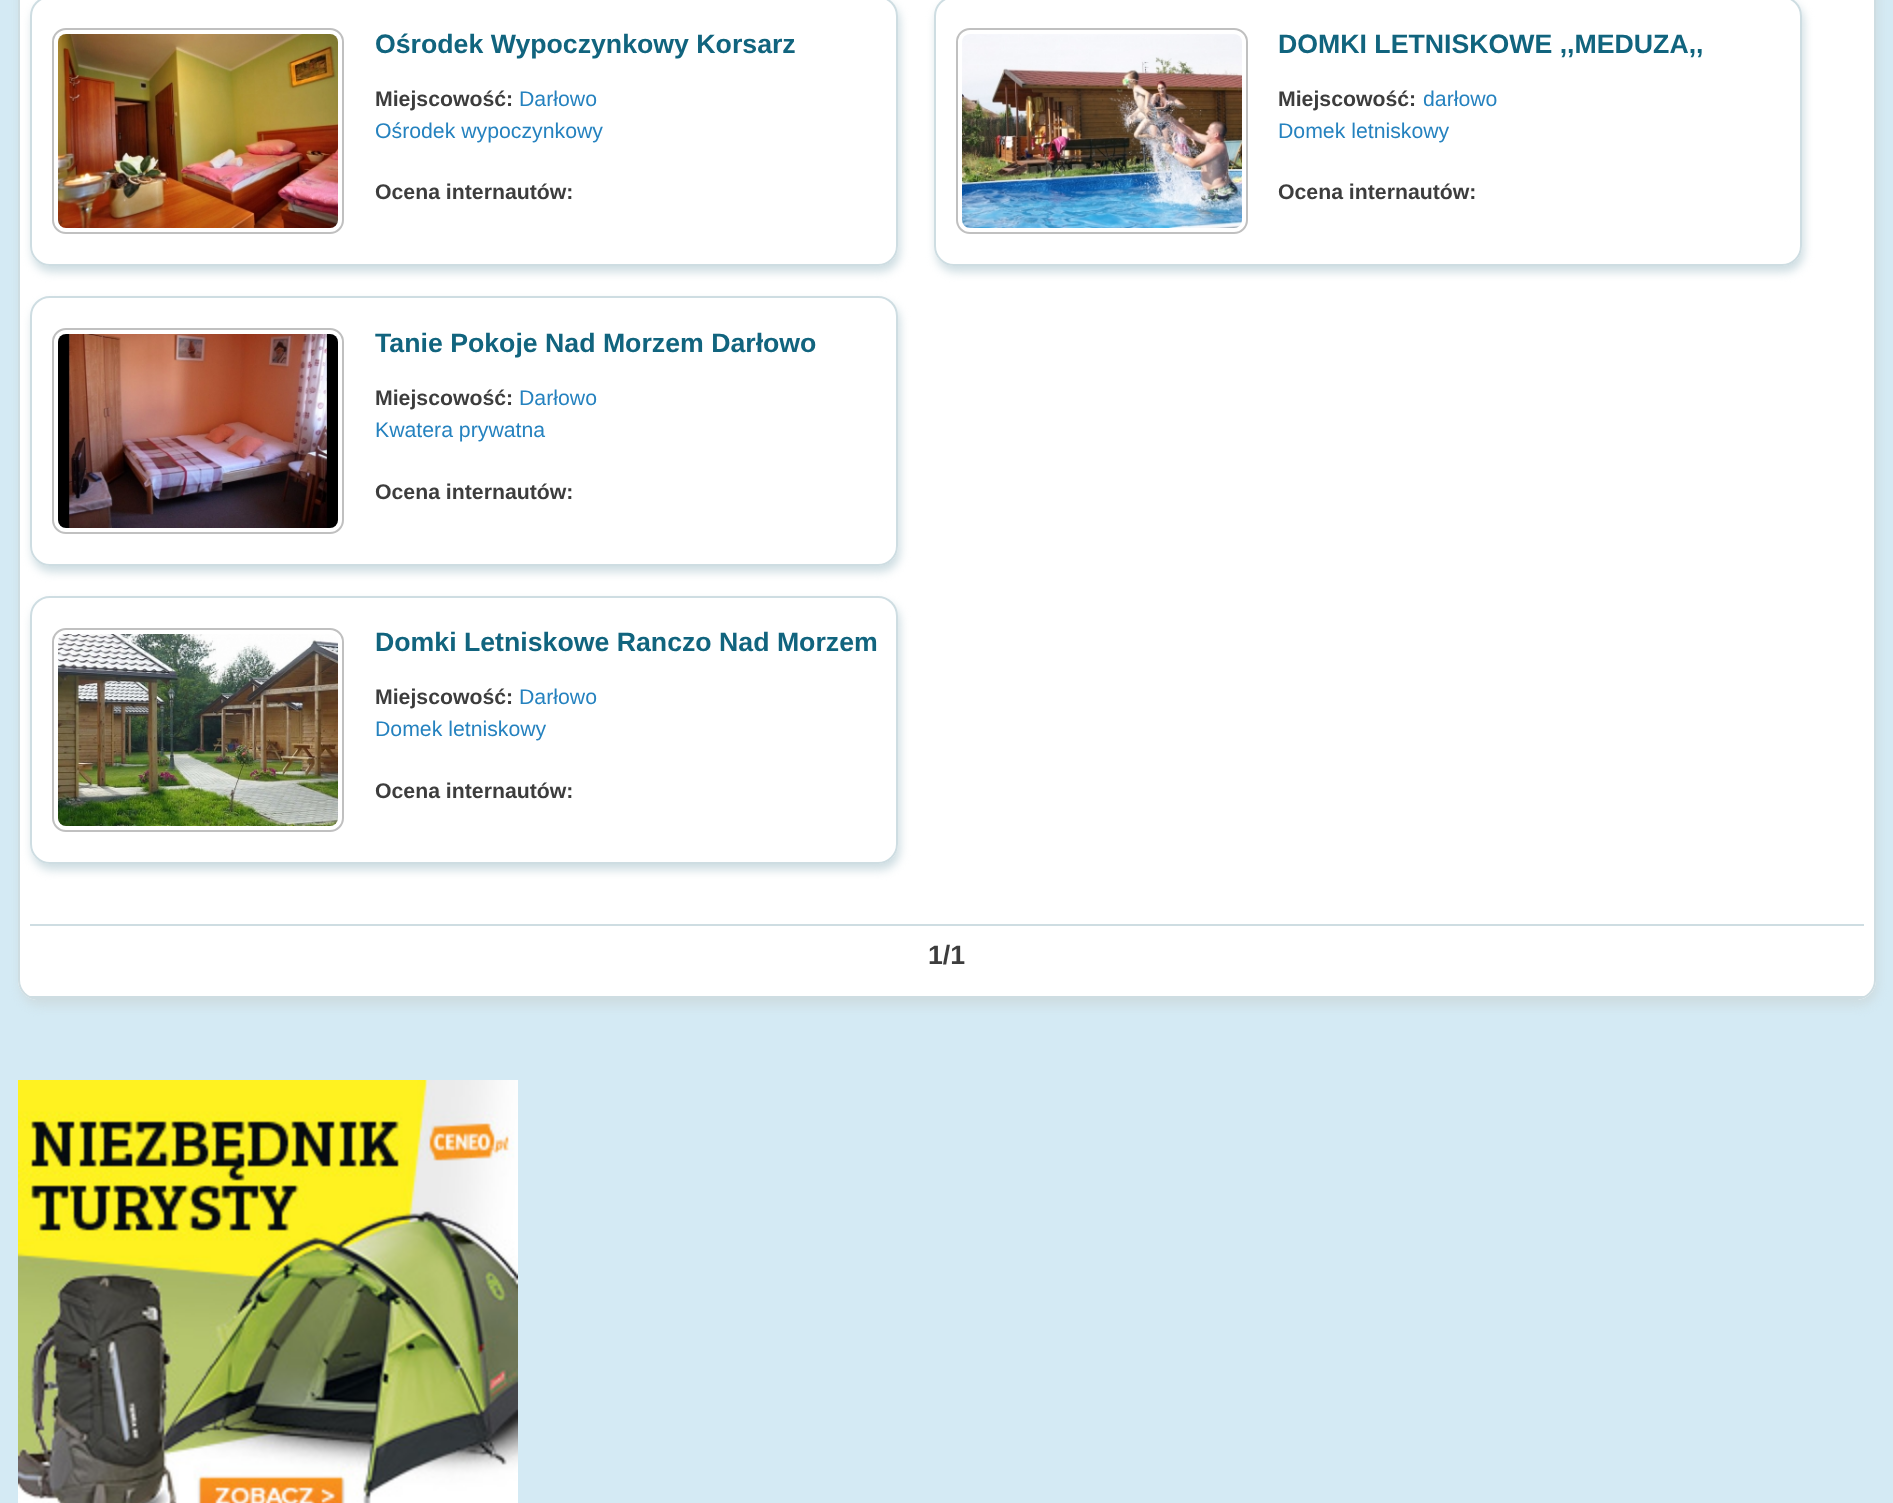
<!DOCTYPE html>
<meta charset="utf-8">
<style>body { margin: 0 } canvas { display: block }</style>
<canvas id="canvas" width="1893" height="1503"></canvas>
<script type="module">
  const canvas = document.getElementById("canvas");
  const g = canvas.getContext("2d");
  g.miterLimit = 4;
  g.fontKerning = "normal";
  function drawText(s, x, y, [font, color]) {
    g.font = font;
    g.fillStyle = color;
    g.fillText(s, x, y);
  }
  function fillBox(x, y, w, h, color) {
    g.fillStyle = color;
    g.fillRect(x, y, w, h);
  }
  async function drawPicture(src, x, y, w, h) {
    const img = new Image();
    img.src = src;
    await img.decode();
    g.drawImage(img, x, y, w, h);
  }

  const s1 = ["bold 26.7px Liberation Sans", "#11647E"];
  const s2 = ["bold 21.25px Liberation Sans", "#3D3D3D"];
  const s3 = ["21.25px Liberation Sans", "#2582BF"];
  const s4 = ["bold 26.7px Liberation Sans", "#3D3D3D"];

  fillBox(0, 0, 1893, 1503, "#D4EAF4");
  g.fillStyle = "#CEDDE2";
  g.filter = "blur(5px)";
  g.beginPath();
  g.roundRect(20, -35, 1858, 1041, 20);
  g.fill();
  g.filter = "none";
  g.fillStyle = "#FFFFFF";
  g.beginPath();
  g.moveTo(18, -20);
  g.lineTo(1876, -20);
  g.lineTo(1876, 980);
  g.bezierCurveTo(1876, 991, 1867, 1000, 1856, 1000);
  g.lineTo(38, 1000);
  g.bezierCurveTo(27, 1000, 18, 991, 18, 980);
  g.closePath();
  g.fill();
  g.fillStyle = "#CEDDE2";
  g.beginPath();
  g.moveTo(18, -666);
  g.lineTo(1876, -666);
  g.lineTo(1876, 980);
  g.bezierCurveTo(1876, 991, 1867, 1000, 1856, 1000);
  g.lineTo(38, 1000);
  g.bezierCurveTo(27, 1000, 18, 991, 18, 980);
  g.closePath();
  g.moveTo(20, -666);
  g.lineTo(1874, -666);
  g.lineTo(1874, 980);
  g.bezierCurveTo(1874, 990, 1866, 998, 1856, 998);
  g.lineTo(38, 998);
  g.bezierCurveTo(28, 998, 20, 990, 20, 980);
  g.closePath();
  g.fill("evenodd");
  g.save();
  g.beginPath();
  g.moveTo(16, 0);
  g.lineTo(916, 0);
  g.lineTo(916, 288);
  g.lineTo(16, 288);
  g.closePath();
  g.moveTo(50, -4);
  g.lineTo(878, -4);
  g.bezierCurveTo(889, -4, 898, 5, 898, 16);
  g.lineTo(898, 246);
  g.bezierCurveTo(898, 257, 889, 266, 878, 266);
  g.lineTo(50, 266);
  g.bezierCurveTo(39, 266, 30, 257, 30, 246);
  g.lineTo(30, 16);
  g.bezierCurveTo(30, 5, 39, -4, 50, -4);
  g.closePath();
  g.clip("evenodd");
  g.filter = "blur(5px)";
  g.beginPath();
  g.roundRect(32, 2, 868, 270, 20);
  g.fill();
  g.filter = "none";
  g.restore();
  g.beginPath();
  g.roundRect(31, -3, 866, 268, 19);
  g.strokeStyle = "#CEDDE2";
  g.lineWidth = 2;
  g.stroke();
  g.beginPath();
  g.roundRect(53, 29, 290, 204, 13);
  g.strokeStyle = "#C0C0C0";
  g.stroke();
  await drawPicture("pic1.png", 58, 34, 280, 194);
  drawText("Ośrodek Wypoczynkowy Korsarz", 375, 53, s1);
  drawText("Miejscowość:", 375, 106, s2);
  drawText("Darłowo", 519, 106, s3);
  drawText("Ośrodek wypoczynkowy", 375, 138, s3);
  drawText("Ocena internautów:", 375, 199, s2);
  g.save();
  g.beginPath();
  g.moveTo(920, 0);
  g.lineTo(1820, 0);
  g.lineTo(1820, 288);
  g.lineTo(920, 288);
  g.closePath();
  g.moveTo(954, -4);
  g.lineTo(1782, -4);
  g.bezierCurveTo(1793, -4, 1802, 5, 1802, 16);
  g.lineTo(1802, 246);
  g.bezierCurveTo(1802, 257, 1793, 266, 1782, 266);
  g.lineTo(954, 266);
  g.bezierCurveTo(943, 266, 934, 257, 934, 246);
  g.lineTo(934, 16);
  g.bezierCurveTo(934, 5, 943, -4, 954, -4);
  g.closePath();
  g.clip("evenodd");
  g.fillStyle = "#CEDDE2";
  g.filter = "blur(5px)";
  g.beginPath();
  g.roundRect(936, 2, 868, 270, 20);
  g.fill();
  g.filter = "none";
  g.restore();
  g.beginPath();
  g.roundRect(935, -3, 866, 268, 19);
  g.strokeStyle = "#CEDDE2";
  g.stroke();
  g.beginPath();
  g.roundRect(957, 29, 290, 204, 13);
  g.strokeStyle = "#C0C0C0";
  g.stroke();
  await drawPicture("pic2.png", 962, 34, 280, 194);
  drawText("DOMKI LETNISKOWE ,,MEDUZA,,", 1278, 53, s1);
  drawText("Miejscowość:", 1278, 106, s2);
  drawText("darłowo", 1423, 106, s3);
  drawText("Domek letniskowy", 1278, 138, s3);
  drawText("Ocena internautów:", 1278, 199, s2);
  g.save();
  g.beginPath();
  g.moveTo(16, 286);
  g.lineTo(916, 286);
  g.lineTo(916, 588);
  g.lineTo(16, 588);
  g.closePath();
  g.moveTo(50, 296);
  g.lineTo(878, 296);
  g.bezierCurveTo(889, 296, 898, 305, 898, 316);
  g.lineTo(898, 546);
  g.bezierCurveTo(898, 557, 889, 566, 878, 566);
  g.lineTo(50, 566);
  g.bezierCurveTo(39, 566, 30, 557, 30, 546);
  g.lineTo(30, 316);
  g.bezierCurveTo(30, 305, 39, 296, 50, 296);
  g.closePath();
  g.clip("evenodd");
  g.fillStyle = "#CEDDE2";
  g.filter = "blur(5px)";
  g.beginPath();
  g.roundRect(32, 302, 868, 270, 20);
  g.fill();
  g.filter = "none";
  g.restore();
  g.beginPath();
  g.roundRect(31, 297, 866, 268, 19);
  g.strokeStyle = "#CEDDE2";
  g.stroke();
  g.beginPath();
  g.roundRect(53, 329, 290, 204, 13);
  g.strokeStyle = "#C0C0C0";
  g.stroke();
  await drawPicture("pic3.png", 58, 334, 280, 194);
  drawText("Tanie Pokoje Nad Morzem Darłowo", 375, 352, s1);
  drawText("Miejscowość:", 375, 405, s2);
  drawText("Darłowo", 519, 405, s3);
  drawText("Kwatera prywatna", 375, 437, s3);
  drawText("Ocena internautów:", 375, 499, s2);
  g.save();
  g.beginPath();
  g.moveTo(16, 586);
  g.lineTo(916, 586);
  g.lineTo(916, 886);
  g.lineTo(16, 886);
  g.closePath();
  g.moveTo(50, 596);
  g.lineTo(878, 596);
  g.bezierCurveTo(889, 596, 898, 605, 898, 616);
  g.lineTo(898, 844);
  g.bezierCurveTo(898, 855, 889, 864, 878, 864);
  g.lineTo(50, 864);
  g.bezierCurveTo(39, 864, 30, 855, 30, 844);
  g.lineTo(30, 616);
  g.bezierCurveTo(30, 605, 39, 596, 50, 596);
  g.closePath();
  g.clip("evenodd");
  g.fillStyle = "#CEDDE2";
  g.filter = "blur(5px)";
  g.beginPath();
  g.roundRect(32, 602, 868, 268, 20);
  g.fill();
  g.filter = "none";
  g.restore();
  g.beginPath();
  g.roundRect(31, 597, 866, 266, 19);
  g.strokeStyle = "#CEDDE2";
  g.stroke();
  g.beginPath();
  g.roundRect(53, 629, 290, 202, 13);
  g.strokeStyle = "#C0C0C0";
  g.stroke();
  await drawPicture("pic4.png", 58, 634, 280, 192);
  drawText("Domki Letniskowe Ranczo Nad Morzem", 375, 651, s1);
  drawText("Miejscowość:", 375, 704, s2);
  drawText("Darłowo", 519, 704, s3);
  drawText("Domek letniskowy", 375, 736, s3);
  drawText("Ocena internautów:", 375, 798, s2);
  fillBox(30, 924, 1834, 2, "#CEDDE2");
  fillBox(30, 996, 1834, 2, "#CEDDE2");
  drawText("1/1", 928, 964, s4);
  await drawPicture("pic5.png", 18, 1080, 500, 423);
</script>
